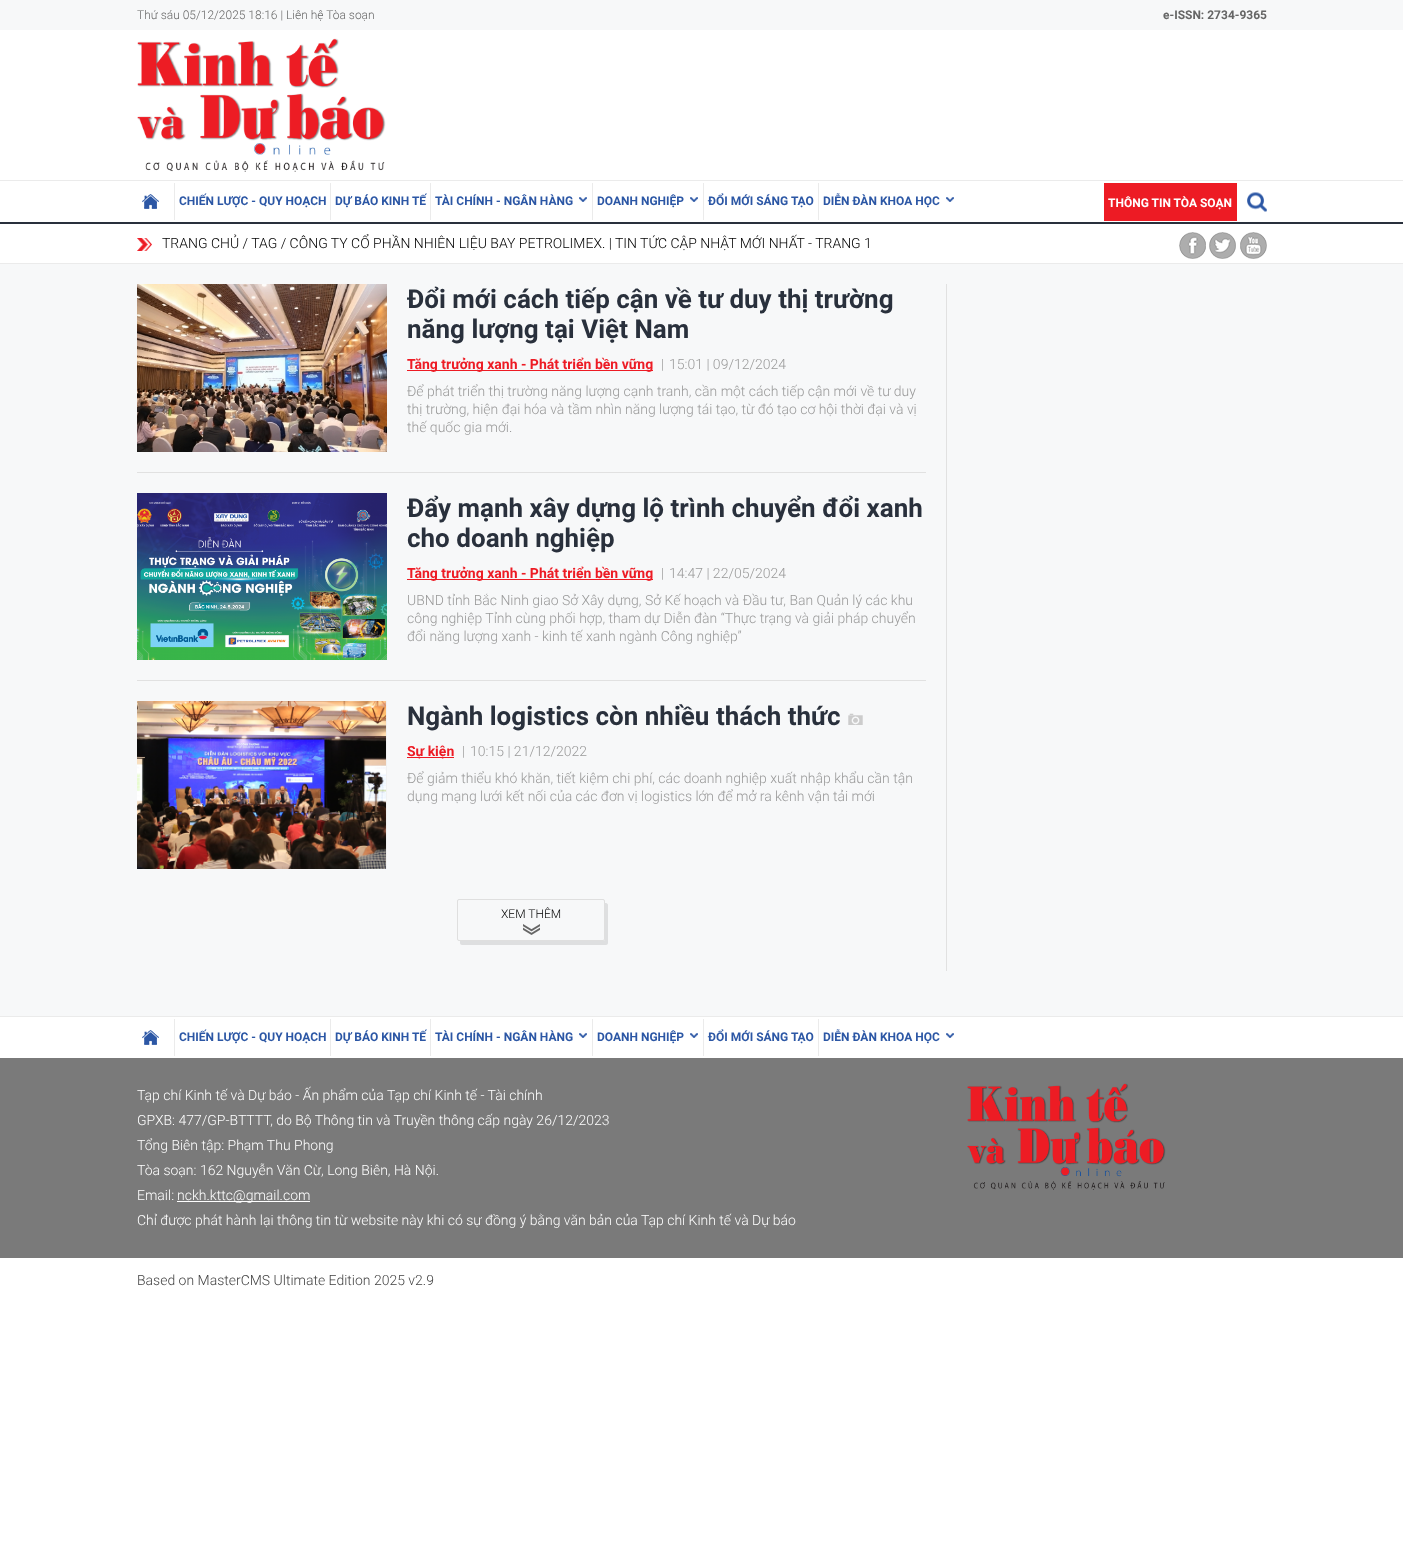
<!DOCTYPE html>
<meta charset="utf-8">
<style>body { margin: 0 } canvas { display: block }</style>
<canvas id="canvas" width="1403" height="1552"></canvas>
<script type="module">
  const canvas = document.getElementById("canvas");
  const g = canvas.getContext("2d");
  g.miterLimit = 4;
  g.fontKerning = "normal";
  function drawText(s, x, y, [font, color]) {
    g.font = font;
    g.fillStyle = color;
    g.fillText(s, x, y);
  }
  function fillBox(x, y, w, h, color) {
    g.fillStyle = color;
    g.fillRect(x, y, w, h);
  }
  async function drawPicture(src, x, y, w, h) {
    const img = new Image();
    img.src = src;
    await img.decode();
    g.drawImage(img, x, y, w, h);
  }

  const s1 = ["300 12px Roboto", "#666666"];
  const s2 = ["bold 12px Roboto", "#666666"];
  const s3 = ["bold 12px Roboto", "#2C57A5"];
  const s4 = ["bold 12px Roboto", "#FFFFFF"];
  const s5 = ["300 14px Roboto", "#000000"];
  const s6 = ["bold 26px Roboto", "#29303C"];
  const s7 = ["bold 14px Roboto", "#ED1B24"];
  const s8 = ["300 14px Roboto", "#999999"];
  const s9 = ["300 12px Roboto", "#000000"];
  const s10 = ["300 14px Roboto", "#FFFFFF"];
  const s11 = ["300 14px Roboto", "#424242"];

  fillBox(0, 0, 1403, 1552, "#FFFFFF");
  fillBox(0, 0, 1403, 30, "#F7F8F9");
  drawText("Thứ sáu 05/12/2025 18:16 | Liên hệ Tòa soạn", 137, 19, s1);
  drawText("e-ISSN: 2734-9365", 1163, 19, s2);
  await drawPicture("pic1.png", 137, 38, 249, 134);
  fillBox(0, 180, 1403, 1, "#EBEBEB");
  fillBox(0, 222, 1403, 2, "#29303C");
  await drawPicture("pic2.png", 142, 194, 17, 15);
  fillBox(174, 183, 1, 37, "#EBEBEB");
  drawText("CHIẾN LƯỢC - QUY HOẠCH", 179, 205, s3);
  fillBox(330, 183, 1, 37, "#EBEBEB");
  drawText("DỰ BÁO KINH TẾ", 335, 205, s3);
  fillBox(430, 183, 1, 37, "#EBEBEB");
  drawText("TÀI CHÍNH - NGÂN HÀNG", 435, 205, s3);
  await drawPicture("pic3.png", 579, 197, 8, 5);
  fillBox(592, 183, 1, 37, "#EBEBEB");
  drawText("DOANH NGHIỆP", 597, 205, s3);
  await drawPicture("pic3.png", 690, 197, 8, 5);
  fillBox(703, 183, 1, 37, "#EBEBEB");
  drawText("ĐỔI MỚI SÁNG TẠO", 708, 205, s3);
  fillBox(818, 183, 1, 37, "#EBEBEB");
  drawText("DIỄN ĐÀN KHOA HỌC", 823, 205, s3);
  await drawPicture("pic3.png", 946, 197, 8, 5);
  fillBox(1104, 183, 133, 38, "#ED1B24");
  drawText("THÔNG TIN TÒA SOẠN", 1108, 207, s4);
  await drawPicture("pic4.png", 1247, 192, 20, 20);
  fillBox(0, 263, 1403, 1, "#EBEBEB");
  await drawPicture("pic5.png", 137, 238, 15, 13);
  drawText("TRANG CHỦ / TAG / CÔNG TY CỔ PHẦN NHIÊN LIỆU BAY PETROLIMEX. | TIN TỨC CẬP NHẬT MỚI NHẤT - TRANG 1", 162, 248, s5);
  await drawPicture("pic6.png", 1179, 232, 27, 27);
  await drawPicture("pic7.png", 1209, 232, 27, 27);
  await drawPicture("pic8.png", 1240, 232, 27, 27);
  fillBox(0, 264, 1403, 752, "#F7F8F9");
  fillBox(946, 284, 1, 687, "#E1E1E1");
  await drawPicture("pic9.png", 137, 284, 250, 168);
  g.save();
  g.beginPath();
  g.rect(407, 284, 519, 152);
  g.clip();
  drawText("Đổi mới cách tiếp cận về tư duy thị trường", 407, 308, s6);
  g.restore();
  drawText("năng lượng tại Việt Nam", 407, 338, s6);
  fillBox(407, 370, 246, 1, "#ED1B24");
  drawText("Tăng trưởng xanh - Phát triển bền vững", 407, 369, s7);
  drawText("|", 661, 369, s8);
  drawText("15:01 | 09/12/2024", 669, 369, s8);
  drawText("Để phát triển thị trường năng lượng cạnh tranh, cần một cách tiếp cận mới về tư duy", 407, 396, s8);
  drawText("thị trường, hiện đại hóa và tầm nhìn năng lượng tái tạo, từ đó tạo cơ hội thời đại và vị", 407, 414, s8);
  drawText("thế quốc gia mới.", 407, 432, s8);
  fillBox(137, 472, 789, 1, "#E1E1E1");
  await drawPicture("pic10.png", 137, 493, 250, 167);
  g.save();
  g.beginPath();
  g.rect(407, 493, 519, 152);
  g.clip();
  drawText("Đẩy mạnh xây dựng lộ trình chuyển đổi xanh", 407, 517, s6);
  g.restore();
  drawText("cho doanh nghiệp", 407, 547, s6);
  fillBox(407, 579, 246, 1, "#ED1B24");
  drawText("Tăng trưởng xanh - Phát triển bền vững", 407, 578, s7);
  drawText("|", 661, 578, s8);
  drawText("14:47 | 22/05/2024", 669, 578, s8);
  drawText("UBND tỉnh Bắc Ninh giao Sở Xây dựng, Sở Kế hoạch và Đầu tư, Ban Quản lý các khu", 407, 605, s8);
  drawText("công nghiệp Tỉnh cùng phối hợp, tham dự Diễn đàn “Thực trạng và giải pháp chuyển", 407, 623, s8);
  drawText("đổi năng lượng xanh - kinh tế xanh ngành Công nghiệp”", 407, 641, s8);
  fillBox(137, 680, 789, 1, "#E1E1E1");
  await drawPicture("pic11.png", 386, 701, 1, 168);
  await drawPicture("pic12.png", 137, 701, 249, 168);
  drawText("Ngành logistics còn nhiều thách thức", 407, 725, s6);
  await drawPicture("pic13.png", 848, 713, 15, 12);
  fillBox(407, 757, 47, 1, "#ED1B24");
  drawText("Sự kiện", 407, 756, s7);
  drawText("|", 462, 756, s8);
  drawText("10:15 | 21/12/2022", 470, 756, s8);
  drawText("Để giảm thiểu khó khăn, tiết kiệm chi phí, các doanh nghiệp xuất nhập khẩu cần tận", 407, 783, s8);
  drawText("dụng mạng lưới kết nối của các đơn vị logistics lớn để mở ra kênh vận tải mới", 407, 801, s8);
  g.fillStyle = "#DEDFE0";
  g.beginPath();
  g.moveTo(460, 941);
  g.lineTo(460, 943);
  g.bezierCurveTo(460, 944, 461, 945, 462, 945);
  g.lineTo(606, 945);
  g.bezierCurveTo(607, 945, 608, 944, 608, 943);
  g.lineTo(608, 905);
  g.bezierCurveTo(608, 904, 607, 903, 606, 903);
  g.lineTo(605, 903);
  g.lineTo(605, 939);
  g.bezierCurveTo(605, 940, 604, 941, 603, 941);
  g.closePath();
  g.fill();
  await drawPicture("pic14.png", 523, 924, 17, 11);
  g.beginPath();
  g.roundRect(457.5, 899.5, 147, 41, 1.5);
  g.strokeStyle = "#DFDFDF";
  g.stroke();
  drawText("XEM THÊM", 501, 918, s9);
  fillBox(0, 1016, 1403, 1, "#EBEBEB");
  await drawPicture("pic2.png", 142, 1030, 17, 15);
  fillBox(174, 1019, 1, 37, "#EBEBEB");
  drawText("CHIẾN LƯỢC - QUY HOẠCH", 179, 1041, s3);
  fillBox(330, 1019, 1, 37, "#EBEBEB");
  drawText("DỰ BÁO KINH TẾ", 335, 1041, s3);
  fillBox(430, 1019, 1, 37, "#EBEBEB");
  drawText("TÀI CHÍNH - NGÂN HÀNG", 435, 1041, s3);
  await drawPicture("pic3.png", 579, 1033, 8, 5);
  fillBox(592, 1019, 1, 37, "#EBEBEB");
  drawText("DOANH NGHIỆP", 597, 1041, s3);
  await drawPicture("pic3.png", 690, 1033, 8, 5);
  fillBox(703, 1019, 1, 37, "#EBEBEB");
  drawText("ĐỔI MỚI SÁNG TẠO", 708, 1041, s3);
  fillBox(818, 1019, 1, 37, "#EBEBEB");
  drawText("DIỄN ĐÀN KHOA HỌC", 823, 1041, s3);
  await drawPicture("pic3.png", 946, 1033, 8, 5);
  fillBox(0, 1058, 1403, 200, "#7A7A7A");
  drawText("Tạp chí Kinh tế và Dự báo - Ấn phẩm của Tạp chí Kinh tế - Tài chính", 137, 1100, s10);
  drawText("GPXB: 477/GP-BTTTT, do Bộ Thông tin và Truyền thông cấp ngày 26/12/2023", 137, 1125, s10);
  drawText("Tổng Biên tập: Phạm Thu Phong", 137, 1150, s10);
  drawText("Tòa soạn: 162 Nguyễn Văn Cừ, Long Biên, Hà Nội.", 137, 1175, s10);
  drawText("Email:", 137, 1200, s10);
  fillBox(177, 1201, 133, 1, "#FFFFFF");
  drawText("nckh.kttc@gmail.com", 177, 1200, s10);
  drawText("Chỉ được phát hành lại thông tin từ website này khi có sự đồng ý bằng văn bản của Tạp chí Kinh tế và Dự báo", 137, 1225, s10);
  await drawPicture("pic15.png", 967, 1083, 199, 107);
  drawText("Based on MasterCMS Ultimate Edition 2025 v2.9", 137, 1285, s11);
</script>
